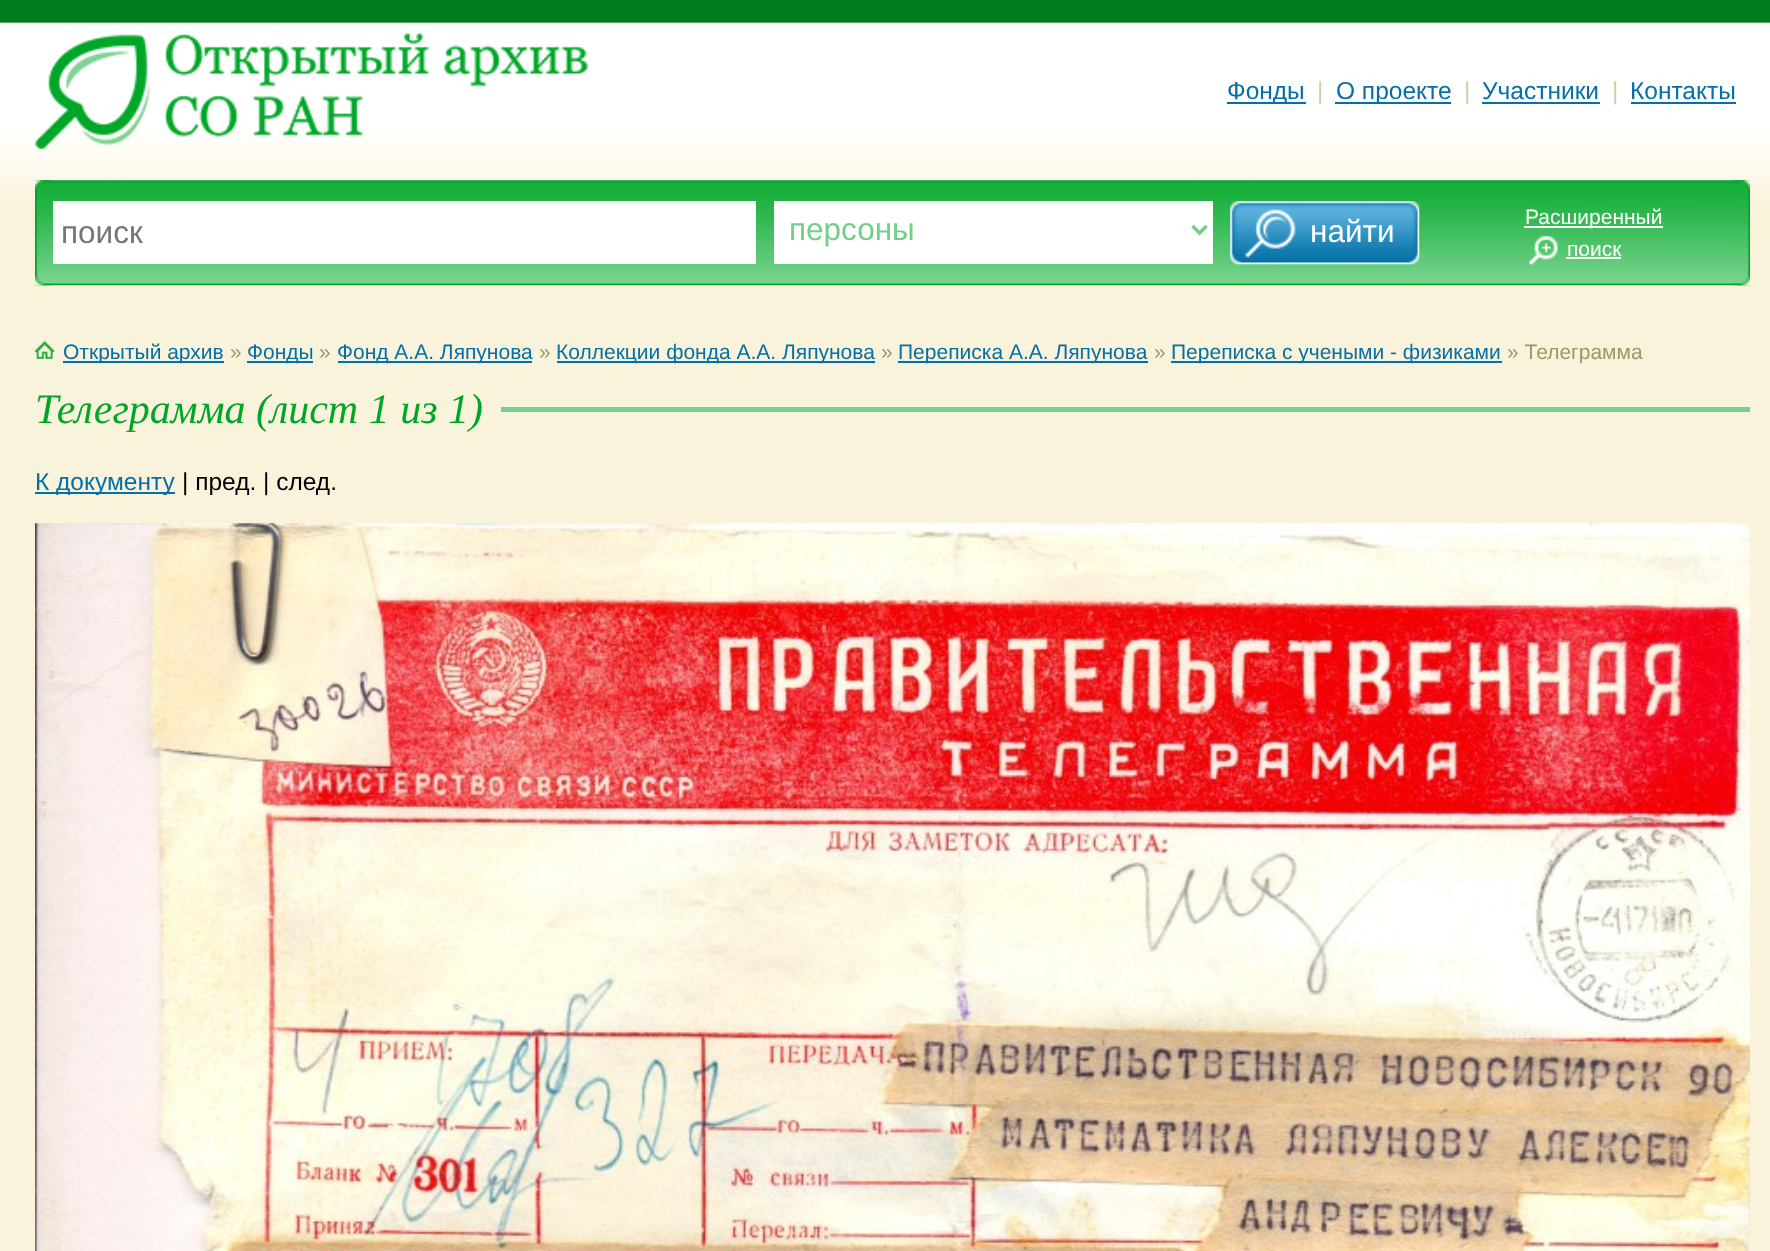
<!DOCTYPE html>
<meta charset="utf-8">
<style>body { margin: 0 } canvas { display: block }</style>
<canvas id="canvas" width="1770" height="1251"></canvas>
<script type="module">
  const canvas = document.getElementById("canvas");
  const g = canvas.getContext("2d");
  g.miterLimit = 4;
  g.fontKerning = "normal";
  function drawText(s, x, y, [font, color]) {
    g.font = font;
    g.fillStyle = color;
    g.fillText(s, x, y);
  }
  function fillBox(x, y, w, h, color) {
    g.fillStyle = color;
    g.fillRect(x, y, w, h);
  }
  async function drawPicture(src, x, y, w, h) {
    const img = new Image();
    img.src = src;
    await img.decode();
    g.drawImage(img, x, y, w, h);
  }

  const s1 = ["24.5px Liberation Sans", "#0370A7"];
  const s2 = ["24.5px Liberation Sans", "#BADBA2"];
  const s3 = ["31.5px Liberation Sans", "#757575"];
  const s4 = ["31.5px Liberation Sans", "#73CE88"];
  const s5 = ["31.5px Liberation Sans", "#FFFFFF"];
  const s6 = ["21px Liberation Sans", "#FFFFFF"];
  const s7 = ["21px Liberation Sans", "#0370A7"];
  const s8 = ["21px Liberation Sans", "#999966"];
  const s9 = ["italic 42px Liberation Serif", "#00A627"];
  const s10 = ["24.5px Liberation Sans", "#000000"];

  fillBox(0, 0, 1770, 1251, "#FAF3DC");
  await drawPicture("pic1.png", 0, 0, 1770, 200);
  await drawPicture("pic2.png", 35, 33, 553, 116);
  fillBox(1227, 102, 79, 2, "#0370A7");
  drawText("Фонды", 1227, 99, s1);
  drawText("|", 1317, 99, s2);
  fillBox(1335, 102, 116, 2, "#0370A7");
  drawText("О проекте", 1336, 99, s1);
  drawText("|", 1464, 99, s2);
  drawText("Участники", 1482, 99, s1);
  fillBox(1482, 102, 118, 2, "#0370A7");
  drawText("|", 1612, 99, s2);
  drawText("Контакты", 1630, 99, s1);
  fillBox(1631, 102, 105, 2, "#0370A7");
  await drawPicture("pic3.png", 35, 180, 1715, 106);
  await drawPicture("pic4.png", 35, 180, 16, 106);
  await drawPicture("pic5.png", 1734, 180, 16, 106);
  fillBox(53, 201, 703, 63, "#FFFFFF");
  drawText("поиск", 61, 243, s3);
  fillBox(774, 201, 439, 63, "#FFFFFF");
  g.beginPath();
  g.moveTo(1192.5, 226);
  g.lineTo(1199.5, 233);
  g.lineTo(1206.5, 226);
  g.strokeStyle = "#73CE88";
  g.lineWidth = 3.5;
  g.stroke();
  drawText("персоны", 789, 240, s4);
  fillBox(1230, 201, 189, 63, "#3394C4");
  await drawPicture("pic6.png", 1230, 201, 190, 64);
  drawText("найти", 1310, 242, s5);
  fillBox(1524, 226, 139, 2, "#FFFFFF");
  drawText("Расширенный", 1525, 224, s6);
  await drawPicture("pic7.png", 1529, 236, 29, 29);
  drawText("поиск", 1567, 256, s6);
  fillBox(1566, 257, 55, 2, "#FFFFFF");
  await drawPicture("pic8.png", 35, 341, 20, 18);
  fillBox(63, 361, 161, 2, "#0370A7");
  drawText("Открытый архив", 63, 359, s7);
  drawText("»", 230, 359, s8);
  fillBox(247, 361, 66, 2, "#0370A7");
  drawText("Фонды", 247, 359, s7);
  drawText("»", 319, 359, s8);
  fillBox(338, 361, 194, 2, "#0370A7");
  drawText("Фонд А.А. Ляпунова", 337, 359, s7);
  drawText("»", 539, 359, s8);
  fillBox(557, 361, 318, 2, "#0370A7");
  drawText("Коллекции фонда А.А. Ляпунова", 556, 359, s7);
  drawText("»", 881, 359, s8);
  fillBox(898, 361, 250, 2, "#0370A7");
  drawText("Переписка А.А. Ляпунова", 898, 359, s7);
  drawText("»", 1154, 359, s8);
  fillBox(1171, 361, 331, 2, "#0370A7");
  drawText("Переписка с учеными - физиками", 1171, 359, s7);
  drawText("» Телеграмма", 1507, 359, s8);
  fillBox(501, 407, 1249, 5, "#74D091");
  drawText("Телеграмма (лист 1 из 1)", 35, 423, s9);
  fillBox(35, 492, 140, 2, "#0370A7");
  drawText("К документу", 35, 490, s1);
  drawText("| пред. | след.", 182, 490, s10);
  await drawPicture("pic9.png", 35, 523, 1715, 728);
</script>
